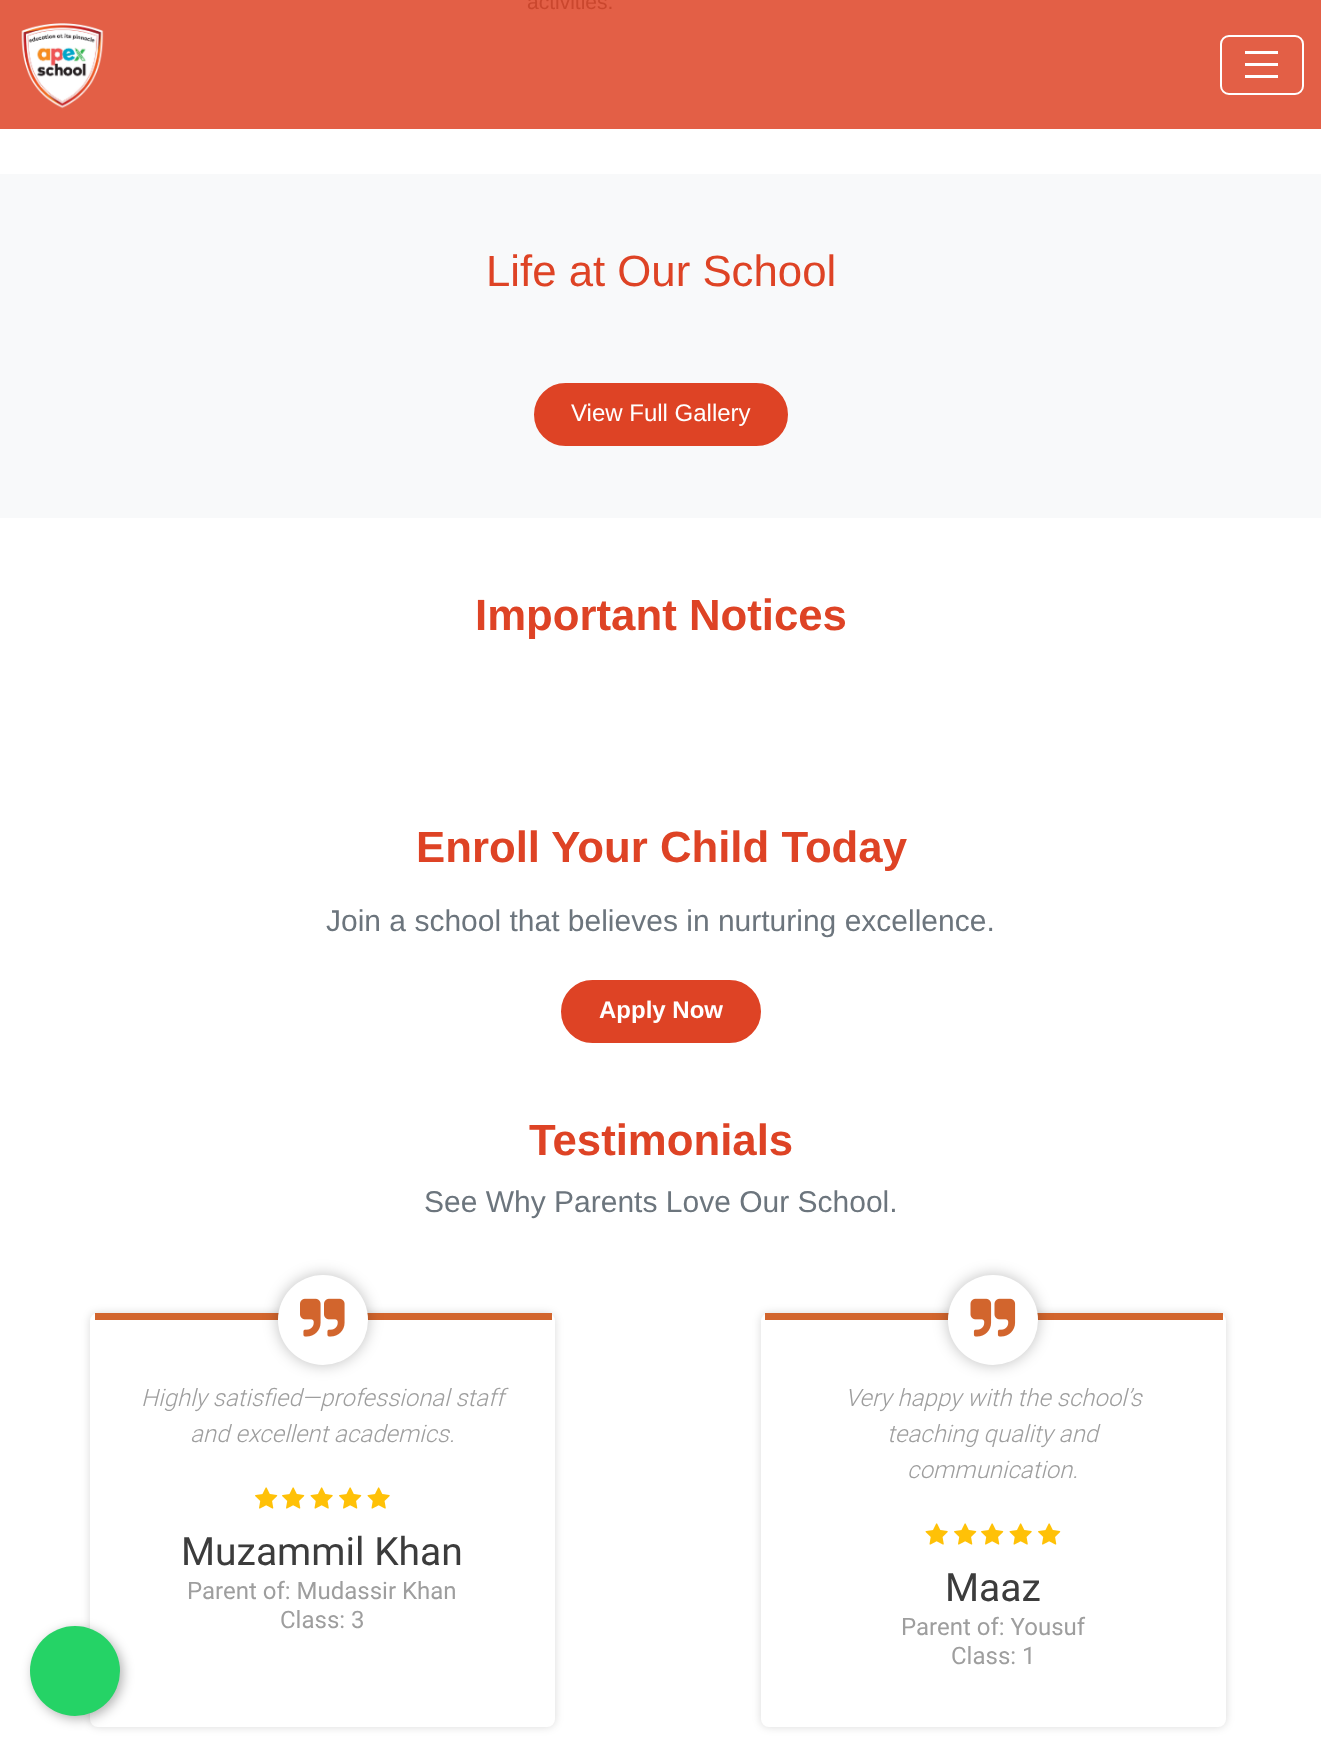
<!DOCTYPE html>
<meta charset="utf-8">
<style>body { margin: 0 } canvas { display: block }</style>
<canvas id="canvas" width="1321" height="1746"></canvas>
<script type="module">
  const canvas = document.getElementById("canvas");
  const g = canvas.getContext("2d");
  g.miterLimit = 4;
  g.fontKerning = "normal";
  function drawText(s, x, y, [font, color]) {
    g.font = font;
    g.fillStyle = color;
    g.fillText(s, x, y);
  }
  function fillBox(x, y, w, h, color) {
    g.fillStyle = color;
    g.fillRect(x, y, w, h);
  }
  function fillRounded(x, y, w, h, r, color) {
    g.fillStyle = color;
    g.beginPath();
    g.roundRect(x, y, w, h, r);
    g.fill();
  }
  async function drawPicture(src, x, y, w, h) {
    const img = new Image();
    img.src = src;
    await img.decode();
    g.drawImage(img, x, y, w, h);
  }

  const s1 = ["21px Liberation Sans", "#CA472E"];
  const s2 = ["43.75px Liberation Sans", "#DE4325"];
  const s3 = ["24px Liberation Sans", "#FFFFFF"];
  const s4 = ["bold 43.75px Liberation Sans", "#DE4325"];
  const s5 = ["30px Liberation Sans", "#6C757D"];
  const s6 = ["bold 24px Liberation Sans", "#FFFFFF"];
  const s7 = ["italic 300 24px Roboto", "#9E9E9E"];
  const s8 = ["39px Roboto", "#3C3C3C"];
  const s9 = ["24px Roboto", "#9E9E9E"];

  fillBox(0, 0, 1321, 1746, "#FFFFFF");
  fillBox(0, 0, 1321, 129, "#E35F46");
  drawText("activities.", 527, 9, s1);
  await drawPicture("pic1.png", 21, 23, 83, 86);
  g.beginPath();
  g.roundRect(1221, 36, 82, 58, 8);
  g.strokeStyle = "#FFFFFF";
  g.lineWidth = 2;
  g.stroke();
  g.beginPath();
  g.moveTo(1245, 52.5);
  g.lineTo(1278, 52.5);
  g.moveTo(1245, 64.5);
  g.lineTo(1278, 64.5);
  g.moveTo(1245, 76.5);
  g.lineTo(1278, 76.5);
  g.lineWidth = 3;
  g.stroke();
  fillBox(0, 174, 1321, 344, "#F8F9FA");
  drawText("Life at Our School", 486, 286, s2);
  g.beginPath();
  g.roundRect(535, 384, 252, 61, 30.5);
  g.fill();
  g.strokeStyle = "#DE4325";
  g.lineWidth = 2;
  g.stroke();
  drawText("View Full Gallery", 571, 421, s3);
  drawText("Important Notices", 475, 630, s4);
  drawText("Enroll Your Child Today", 416, 862, s4);
  drawText("Join a school that believes in nurturing excellence.", 326, 931, s5);
  g.fillStyle = "#DE4325";
  g.beginPath();
  g.roundRect(562, 981, 198, 61, 30.5);
  g.fill();
  g.stroke();
  drawText("Apply Now", 599, 1018, s6);
  drawText("Testimonials", 529, 1155, s4);
  drawText("See Why Parents Love Our School.", 424, 1212, s5);
  g.fillStyle = "rgba(0, 0, 0, 0.15)";
  g.filter = "blur(4px)";
  g.beginPath();
  g.roundRect(90, 1313, 465, 414, 8);
  g.fill();
  g.filter = "none";
  fillRounded(90, 1313, 465, 414, 8, "#FFFFFF");
  g.fillStyle = "rgba(0, 0, 0, 0.3)";
  g.filter = "blur(6px)";
  g.beginPath();
  g.roundRect(33, 1629, 90, 90, 45);
  g.fill();
  g.filter = "none";
  g.fillStyle = "#25D366";
  g.beginPath();
  g.arc(75, 1671, 45, 0, Math.PI * 2);
  g.fill();
  fillBox(95, 1313, 457, 7, "#D2652D");
  g.fillStyle = "rgba(0, 0, 0, 0.25)";
  g.filter = "blur(7.5px)";
  g.beginPath();
  g.roundRect(278, 1275, 90, 90, 45);
  g.fill();
  g.filter = "none";
  g.fillStyle = "#FFFFFF";
  g.beginPath();
  g.arc(323, 1320, 45, 0, Math.PI * 2);
  g.fill();
  await drawPicture("pic2.png", 300, 1298, 45, 39);
  drawText("Highly satisfied—professional staff", 141, 1406, s7);
  drawText("and excellent academics.", 190, 1442, s7);
  await drawPicture("pic3.png", 255, 1487, 23, 22);
  await drawPicture("pic3.png", 282, 1487, 23, 22);
  await drawPicture("pic4.png", 310, 1487, 23, 22);
  await drawPicture("pic3.png", 339, 1487, 23, 22);
  await drawPicture("pic4.png", 367, 1487, 23, 22);
  drawText("Muzammil Khan", 181, 1565, s8);
  drawText("Parent of: Mudassir Khan", 187, 1599, s9);
  drawText("Class: 3", 280, 1628, s9);
  g.fillStyle = "rgba(0, 0, 0, 0.15)";
  g.filter = "blur(4px)";
  g.beginPath();
  g.roundRect(761, 1313, 465, 414, 8);
  g.fill();
  g.filter = "none";
  fillRounded(761, 1313, 465, 414, 8, "#FFFFFF");
  fillBox(765, 1313, 458, 7, "#D2652D");
  g.fillStyle = "rgba(0, 0, 0, 0.25)";
  g.filter = "blur(7.5px)";
  g.beginPath();
  g.roundRect(948, 1275, 90, 90, 45);
  g.fill();
  g.filter = "none";
  g.fillStyle = "#FFFFFF";
  g.beginPath();
  g.arc(993, 1320, 45, 0, Math.PI * 2);
  g.fill();
  await drawPicture("pic5.png", 970, 1298, 46, 39);
  drawText("Very happy with the school’s", 845, 1406, s7);
  drawText("teaching quality and", 887, 1442, s7);
  drawText("communication.", 907, 1478, s7);
  await drawPicture("pic4.png", 925, 1523, 23, 22);
  await drawPicture("pic3.png", 954, 1523, 23, 22);
  await drawPicture("pic3.png", 981, 1523, 23, 22);
  await drawPicture("pic4.png", 1009, 1523, 23, 22);
  await drawPicture("pic3.png", 1038, 1523, 23, 22);
  drawText("Maaz", 945, 1601, s8);
  drawText("Parent of: Yousuf", 901, 1635, s9);
  drawText("Class: 1", 951, 1664, s9);
</script>
